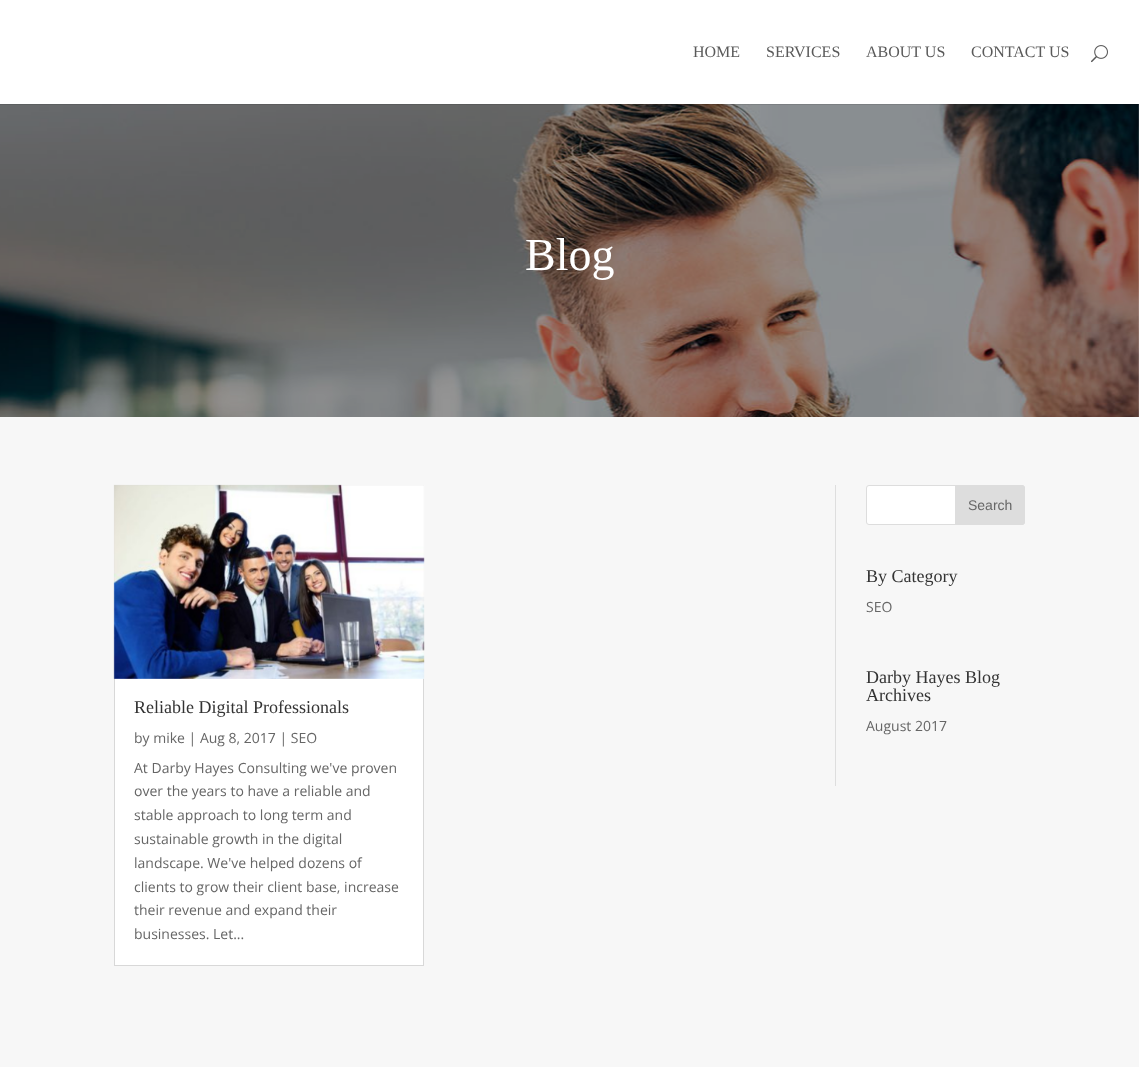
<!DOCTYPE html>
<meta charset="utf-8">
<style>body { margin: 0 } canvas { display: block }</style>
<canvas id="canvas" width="1139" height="1067"></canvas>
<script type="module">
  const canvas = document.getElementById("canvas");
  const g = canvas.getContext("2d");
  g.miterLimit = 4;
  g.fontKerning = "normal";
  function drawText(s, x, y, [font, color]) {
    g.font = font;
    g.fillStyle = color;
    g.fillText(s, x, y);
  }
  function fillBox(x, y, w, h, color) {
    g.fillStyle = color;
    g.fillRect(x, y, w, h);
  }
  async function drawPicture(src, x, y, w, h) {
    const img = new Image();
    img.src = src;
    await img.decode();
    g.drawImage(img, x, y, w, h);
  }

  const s1 = ["16px Liberation Serif", "#5A5A5A"];
  const s2 = ["46px Liberation Serif", "#FFFFFF"];
  const s3 = ["14px Liberation Sans", "#666666"];
  const s4 = ["18px Liberation Serif", "#333333"];
  const s5 = ["14px Open Sans", "#666666"];

  fillBox(0, 0, 1139, 1067, "#FFFFFF");
  await drawPicture("pic2.png", 0, 104, 1139, 313);
  fillBox(0, 104, 1139, 1, "rgba(0, 0, 0, 0.1)");
  drawText("HOME", 693, 57, s1);
  drawText("SERVICES", 766, 57, s1);
  drawText("ABOUT US", 866, 57, s1);
  drawText("CONTACT US", 971, 57, s1);
  await drawPicture("pic1.png", 1091, 45, 17, 18);
  drawText("Blog", 525, 270, s2);
  fillBox(0, 417, 1139, 650, "#F7F7F7");
  fillBox(835, 485, 1, 301, "#DEDEDE");
  g.fillStyle = "#FFFFFF";
  g.beginPath();
  g.roundRect(866.5, 485.5, 158, 39, 2.5);
  g.fill();
  g.strokeStyle = "#DDDDDD";
  g.stroke();
  g.fillStyle = "#DDDDDD";
  g.beginPath();
  g.roundRect(955.5, 485.5, 69, 39, [0, 2.5, 2.5, 0]);
  g.fill();
  g.stroke();
  drawText("Search", 968, 510, s3);
  drawText("By Category", 866, 582, s4);
  drawText("SEO", 866, 612, s5);
  drawText("Darby Hayes Blog", 866, 683, s4);
  drawText("Archives", 866, 701, s4);
  drawText("August 2017", 866, 731, s5);
  fillBox(115, 678, 308, 287, "#FFFFFF");
  g.strokeStyle = "#D8D8D8";
  g.strokeRect(114.5, 485.5, 309, 480);
  await drawPicture("pic3.png", 113, 484, 312, 195);
  drawText("Reliable Digital Professionals", 134, 713, s4);
  drawText("by mike | Aug 8, 2017 | SEO", 134, 743, s5);
  drawText("At Darby Hayes Consulting we've proven", 134, 773, s5);
  drawText("over the years to have a reliable and", 134, 796, s5);
  drawText("stable approach to long term and", 134, 820, s5);
  drawText("sustainable growth in the digital", 134, 844, s5);
  drawText("landscape. We've helped dozens of", 134, 868, s5);
  drawText("clients to grow their client base, increase", 134, 892, s5);
  drawText("their revenue and expand their", 134, 915, s5);
  drawText("businesses. Let...", 134, 939, s5);
</script>
